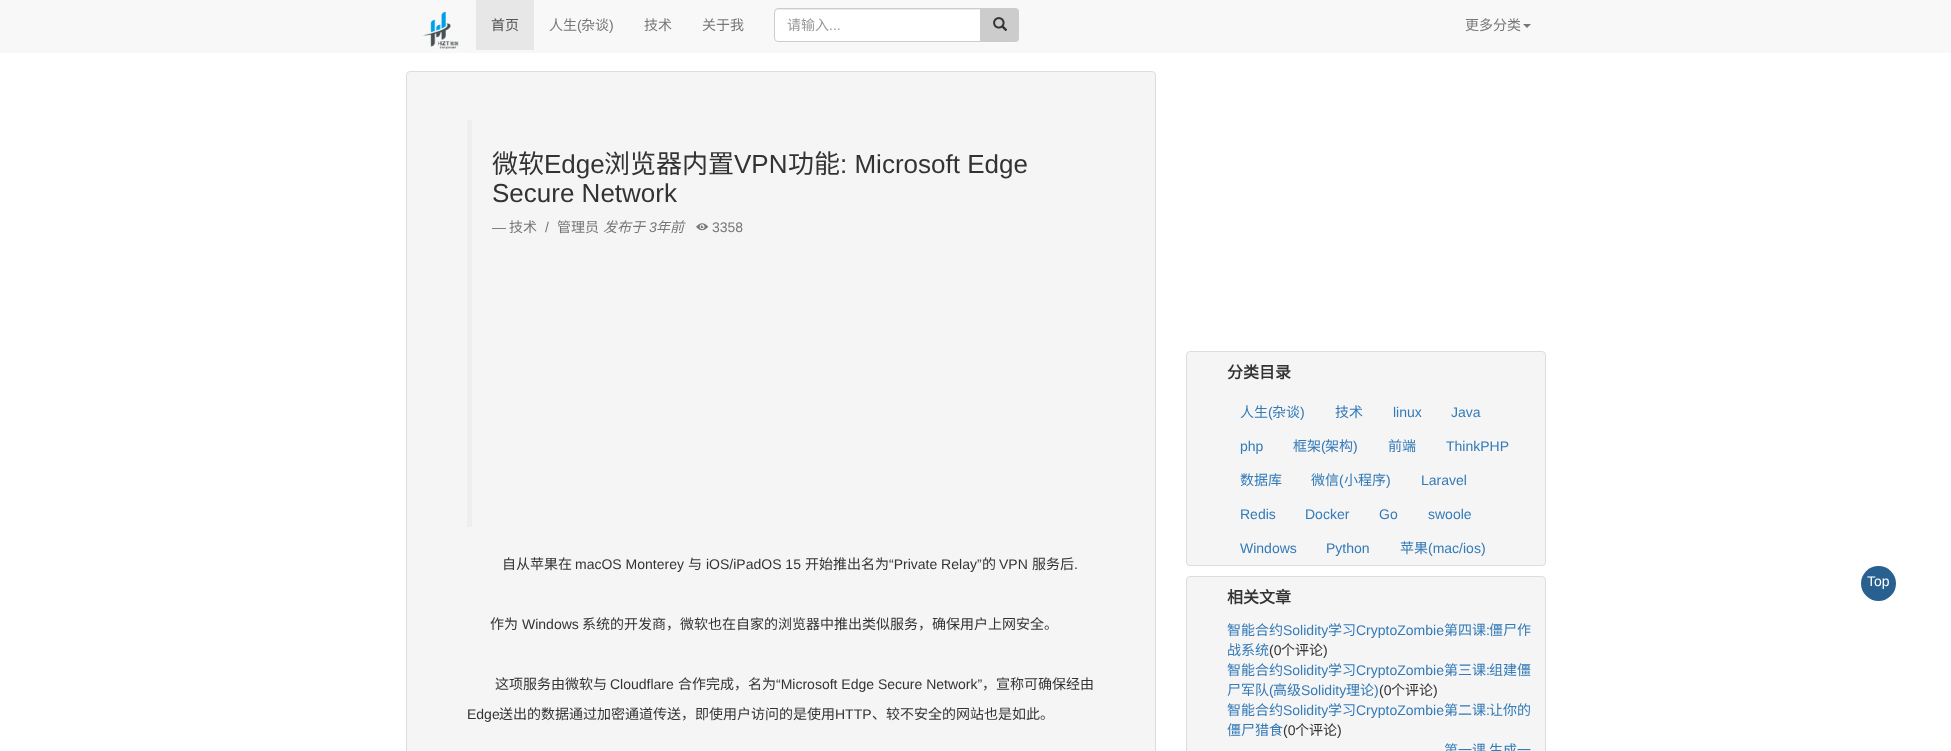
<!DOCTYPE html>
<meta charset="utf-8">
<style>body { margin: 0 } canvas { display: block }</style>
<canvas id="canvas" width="1951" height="751"></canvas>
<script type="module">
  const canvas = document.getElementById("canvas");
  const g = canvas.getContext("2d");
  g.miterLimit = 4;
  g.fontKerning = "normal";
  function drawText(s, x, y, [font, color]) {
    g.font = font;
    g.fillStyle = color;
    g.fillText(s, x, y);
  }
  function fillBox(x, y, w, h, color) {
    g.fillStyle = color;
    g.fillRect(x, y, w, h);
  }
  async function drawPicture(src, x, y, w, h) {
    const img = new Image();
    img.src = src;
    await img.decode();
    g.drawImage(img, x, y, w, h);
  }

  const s1 = ["14px Noto Sans CJK SC", "#555555"];
  const s2 = ["14px Noto Sans CJK SC", "#777777"];
  const s3 = ["14px Liberation Sans", "#777777"];
  const s4 = ["14px Noto Sans CJK SC", "#999999"];
  const s5 = ["14px Liberation Sans", "#999999"];
  const s6 = ["26px Noto Sans CJK SC", "#333333"];
  const s7 = ["26px Liberation Sans", "#333333"];
  const s8 = ["italic 14px Noto Sans CJK SC", "#777777"];
  const s9 = ["italic 14px Liberation Sans", "#777777"];
  const s10 = ["14px Noto Sans CJK SC", "#333333"];
  const s11 = ["14px Liberation Sans", "#333333"];
  const s12 = ["bold 16px Noto Sans CJK SC", "#333333"];
  const s13 = ["14px Noto Sans CJK SC", "#337AB7"];
  const s14 = ["14px Liberation Sans", "#337AB7"];
  const s15 = ["14px Liberation Sans", "#FFFFFF"];

  fillBox(0, 0, 1951, 751, "#FFFFFF");
  fillBox(0, 0, 1951, 53, "#F8F8F8");
  await drawPicture("pic1.png", 422, 11, 37, 38);
  fillBox(476, 0, 58, 50, "#E7E7E7");
  drawText("首页", 491, 30, s1);
  drawText("人生", 549, 30, s2);
  drawText("(", 577, 30, s3);
  drawText("杂谈", 581, 30, s2);
  drawText(")", 609, 30, s3);
  drawText("技术", 644, 30, s2);
  drawText("关于我", 702, 30, s2);
  g.fillStyle = "#FFFFFF";
  g.beginPath();
  g.roundRect(774, 8, 207, 34, [4, 0, 0, 4]);
  g.fill();
  g.fillStyle = "#ECECEC";
  g.beginPath();
  g.moveTo(778, 10);
  g.lineTo(980, 10);
  g.lineTo(980, 9);
  g.lineTo(777, 9);
  g.bezierCurveTo(775, 10, 775, 11, 775, 13);
  g.bezierCurveTo(775, 11, 776, 10, 778, 10);
  g.closePath();
  g.fill();
  g.beginPath();
  g.roundRect(774.5, 8.5, 206, 33, [3.5, 0, 0, 3.5]);
  g.strokeStyle = "#CCCCCC";
  g.stroke();
  drawText("请输入", 787, 30, s4);
  drawText("...", 829, 30, s5);
  g.fillStyle = "#CCCCCC";
  g.beginPath();
  g.roundRect(980, 8, 39, 34, [0, 4, 4, 0]);
  g.fill();
  await drawPicture("pic2.png", 993, 17, 15, 14);
  drawText("更多分类", 1465, 30, s2);
  g.beginPath();
  g.moveTo(1523, 24);
  g.lineTo(1531, 24);
  g.lineTo(1527, 28);
  g.closePath();
  g.fill();
  g.fillStyle = "#F5F5F5";
  g.beginPath();
  g.roundRect(406.5, 71.5, 749, 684, 3.5);
  g.fill();
  g.strokeStyle = "#DDDDDD";
  g.stroke();
  fillBox(467, 120, 5, 407, "#EEEEEE");
  drawText("微软", 492, 173, s6);
  drawText("Edge", 544, 173, s7);
  drawText("浏览器内置", 604, 173, s6);
  drawText("VPN", 734, 173, s7);
  drawText("功能", 788, 173, s6);
  drawText(": Microsoft Edge", 840, 173, s7);
  drawText("Secure Network", 492, 202, s7);
  drawText("—", 492, 232, s3);
  drawText("技术", 509, 232, s2);
  drawText("/", 545, 232, s3);
  drawText("管理员", 557, 232, s2);
  drawText("发布于", 603, 232, s8);
  drawText("3", 649, 232, s9);
  drawText("年前", 656, 232, s8);
  await drawPicture("pic3.png", 696, 223, 13, 8);
  drawText("3358", 712, 232, s3);
  drawText("自从苹果在", 502, 569, s10);
  drawText("macOS Monterey", 575, 569, s11);
  drawText("与", 688, 569, s10);
  drawText("iOS/iPadOS 15", 706, 569, s11);
  drawText("开始推出名为", 805, 569, s10);
  drawText("“Private Relay”", 889, 569, s11);
  drawText("的", 982, 569, s10);
  drawText("VPN", 999, 569, s11);
  drawText("服务后", 1032, 569, s10);
  drawText(".", 1074, 569, s11);
  drawText("作为", 490, 629, s10);
  drawText("Windows", 522, 629, s11);
  drawText("系统的开发商，微软也在自家的浏览器中推出类似服务，确保用户上网安全。", 582, 629, s10);
  drawText("这项服务由微软与", 495, 689, s10);
  drawText("Cloudflare", 610, 689, s11);
  drawText("合作完成，名为", 678, 689, s10);
  drawText("“Microsoft Edge Secure Network”", 776, 689, s11);
  drawText("，宣称可确保经由", 982, 689, s10);
  drawText("Edge", 467, 719, s11);
  drawText("送出的数据通过加密通道传送，即使用户访问的是使用", 499, 719, s10);
  drawText("HTTP", 835, 719, s11);
  drawText("、较不安全的网站也是如此。", 872, 719, s10);
  g.fillStyle = "#F5F5F5";
  g.beginPath();
  g.roundRect(1186.5, 351.5, 359, 214, 3.5);
  g.fill();
  g.stroke();
  drawText("分类目录", 1227, 378, s12);
  drawText("人生", 1240, 417, s13);
  drawText("(", 1268, 417, s14);
  drawText("杂谈", 1272, 417, s13);
  drawText(")", 1300, 417, s14);
  drawText("技术", 1335, 417, s13);
  drawText("linux", 1393, 417, s14);
  drawText("Java", 1451, 417, s14);
  drawText("php", 1240, 451, s14);
  drawText("框架", 1293, 451, s13);
  drawText("(", 1321, 451, s14);
  drawText("架构", 1325, 451, s13);
  drawText(")", 1353, 451, s14);
  drawText("前端", 1388, 451, s13);
  drawText("ThinkPHP", 1446, 451, s14);
  drawText("数据库", 1240, 485, s13);
  drawText("微信", 1311, 485, s13);
  drawText("(", 1339, 485, s14);
  drawText("小程序", 1344, 485, s13);
  drawText(")", 1386, 485, s14);
  drawText("Laravel", 1421, 485, s14);
  drawText("Redis", 1240, 519, s14);
  drawText("Docker", 1305, 519, s14);
  drawText("Go", 1379, 519, s14);
  drawText("swoole", 1428, 519, s14);
  drawText("Windows", 1240, 553, s14);
  drawText("Python", 1326, 553, s14);
  drawText("苹果", 1400, 553, s13);
  drawText("(mac/ios)", 1428, 553, s14);
  g.fillStyle = "#F5F5F5";
  g.beginPath();
  g.roundRect(1186.5, 576.5, 359, 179, 3.5);
  g.fill();
  g.stroke();
  drawText("相关文章", 1227, 603, s12);
  drawText("智能合约", 1227, 635, s13);
  drawText("Solidity", 1283, 635, s14);
  drawText("学习", 1328, 635, s13);
  drawText("CryptoZombie", 1356, 635, s14);
  drawText("第四课", 1444, 635, s13);
  drawText(":", 1486, 635, s14);
  drawText("僵尸作", 1489, 635, s13);
  drawText("战系统", 1227, 655, s13);
  drawText("(0", 1269, 655, s11);
  drawText("个评论", 1281, 655, s10);
  drawText(")", 1323, 655, s11);
  drawText("智能合约", 1227, 675, s13);
  drawText("Solidity", 1283, 675, s14);
  drawText("学习", 1328, 675, s13);
  drawText("CryptoZombie", 1356, 675, s14);
  drawText("第三课", 1444, 675, s13);
  drawText(":", 1486, 675, s14);
  drawText("组建僵", 1489, 675, s13);
  drawText("尸军队", 1227, 695, s13);
  drawText("(", 1269, 695, s14);
  drawText("高级", 1273, 695, s13);
  drawText("Solidity", 1301, 695, s14);
  drawText("理论", 1346, 695, s13);
  drawText(")", 1374, 695, s14);
  drawText("(0", 1379, 695, s11);
  drawText("个评论", 1391, 695, s10);
  drawText(")", 1433, 695, s11);
  drawText("智能合约", 1227, 715, s13);
  drawText("Solidity", 1283, 715, s14);
  drawText("学习", 1328, 715, s13);
  drawText("CryptoZombie", 1356, 715, s14);
  drawText("第二课", 1444, 715, s13);
  drawText(":", 1486, 715, s14);
  drawText("让你的", 1489, 715, s13);
  drawText("僵尸猎食", 1227, 735, s13);
  drawText("(0", 1283, 735, s11);
  drawText("个评论", 1295, 735, s10);
  drawText(")", 1337, 735, s11);
  drawText("第一课", 1444, 755, s13);
  drawText("生成一", 1489, 755, s13);
  g.fillStyle = "#286090";
  g.beginPath();
  g.arc(1878.5, 583.5, 17.5, 0, Math.PI * 2);
  g.fill();
  drawText("Top", 1867, 586, s15);
</script>
